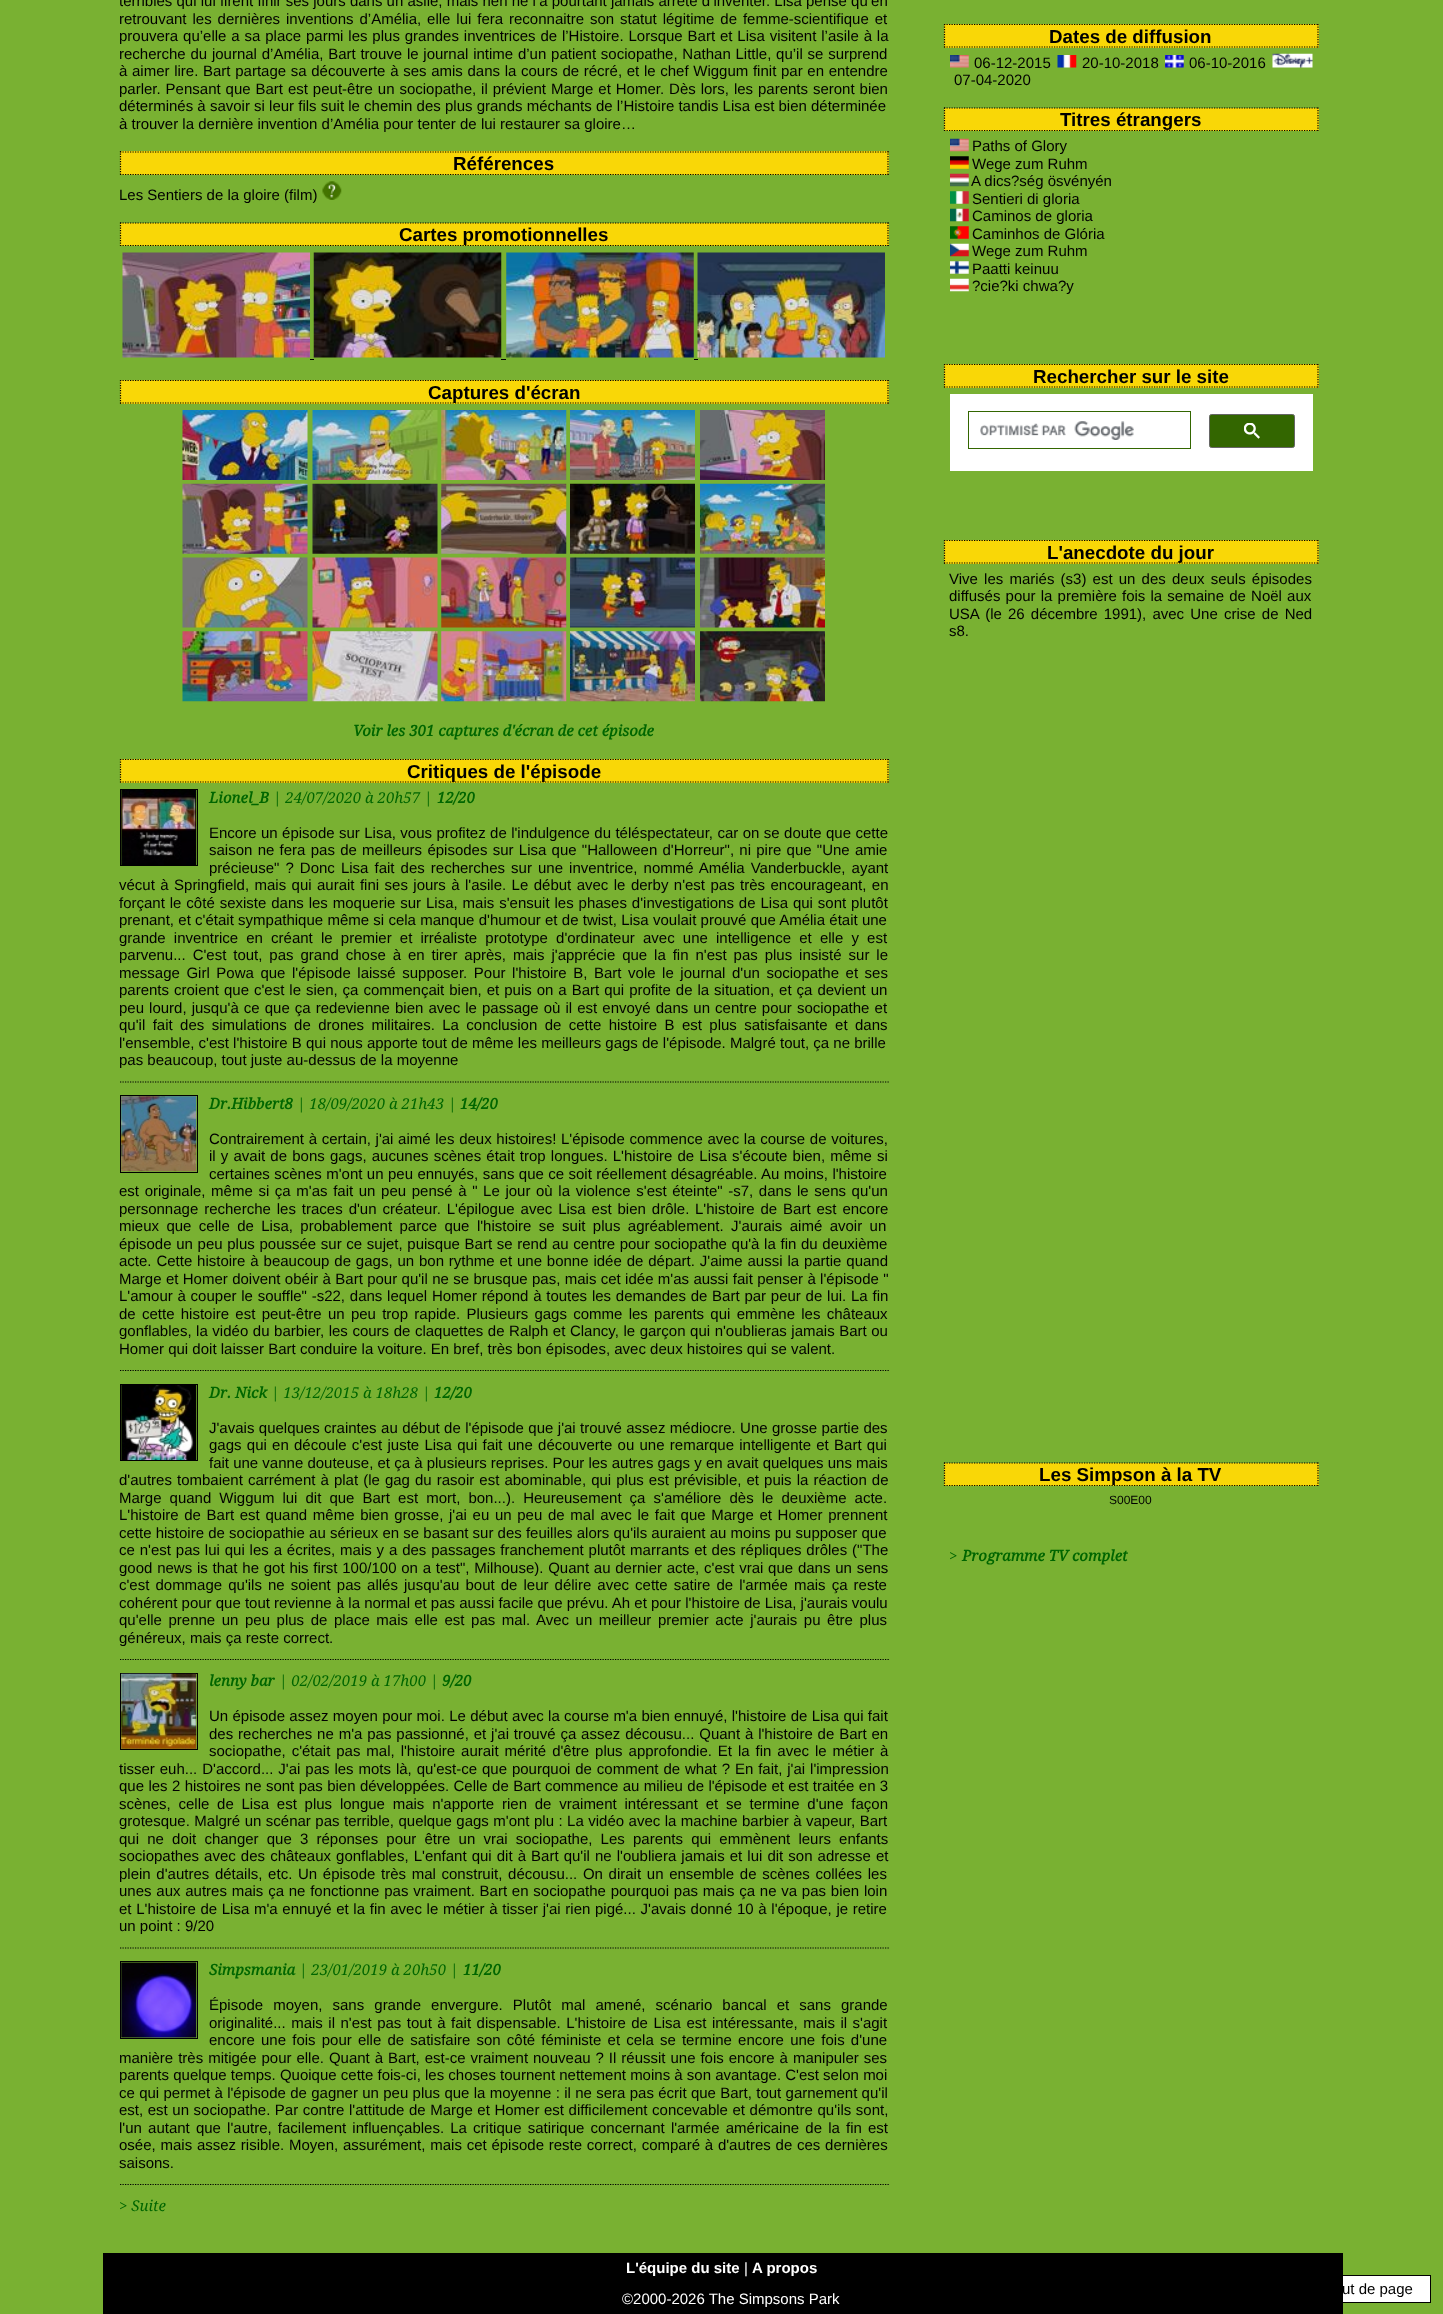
<!DOCTYPE html>
<meta charset="utf-8">
<style>body { margin: 0 } canvas { display: block }</style>
<canvas id="canvas" width="1443" height="2314"></canvas>
<script type="module">
  const canvas = document.getElementById("canvas");
  const g = canvas.getContext("2d");
  g.miterLimit = 4;
  g.fontKerning = "normal";
  function drawText(s, x, y, [font, color]) {
    g.font = font;
    g.fillStyle = color;
    g.fillText(s, x, y);
  }
  function fillBox(x, y, w, h, color) {
    g.fillStyle = color;
    g.fillRect(x, y, w, h);
  }
  async function drawPicture(src, x, y, w, h) {
    const img = new Image();
    img.src = src;
    await img.decode();
    g.drawImage(img, x, y, w, h);
  }

  const s1 = ["15px Liberation Sans", "#000000"];
  const s2 = ["bold 18.75px Liberation Sans", "#000000"];
  const s3 = ["italic bold 15px Droid Serif", "#006600"];
  const s4 = ["italic 15px Droid Serif", "#006600"];
  const s5 = ["12px Liberation Sans", "#000000"];
  const s6 = ["bold 15px Liberation Sans", "#FFFFFF"];
  const s7 = ["15px Liberation Sans", "#FFFFFF"];

  fillBox(0, 0, 1443, 2314, "#79B132");
  drawText("terribles qui lui firent finir ses jours dans un asile, mais rien ne l’a pourtant jamais arrêté d’inventer. Lisa pense qu’en", 119, 6, s1);
  g.wordSpacing = "1.75px";
  drawText("retrouvant les dernières inventions d’Amélia, elle lui fera reconnaitre son statut légitime de femme-scientifique et", 119, 24, s1);
  g.wordSpacing = "0.7px";
  drawText("prouvera qu’elle a sa place parmi les plus grandes inventrices de l’Histoire. Lorsque Bart et Lisa visitent l’asile à la", 119, 41, s1);
  g.wordSpacing = "0.6px";
  drawText("recherche du journal d’Amélia, Bart trouve le journal intime d’un patient sociopathe, Nathan Little, qu’il se surprend", 119, 59, s1);
  g.wordSpacing = "0.5px";
  drawText("à aimer lire. Bart partage sa découverte à ses amis dans la cours de récré, et le chef Wiggum finit par en entendre", 119, 76, s1);
  g.wordSpacing = "0.75px";
  drawText("parler. Pensant que Bart est peut-être un sociopathe, il prévient Marge et Homer. Dès lors, les parents seront bien", 119, 94, s1);
  g.wordSpacing = "0px";
  drawText("déterminés à savoir si leur fils suit le chemin des plus grands méchants de l’Histoire tandis Lisa est bien déterminée", 119, 111, s1);
  drawText("à trouver la dernière invention d’Amélia pour tenter de lui restaurer sa gloire…", 119, 129, s1);
  fillBox(120, 151, 769, 24, "#F9D707");
  g.beginPath();
  g.moveTo(120, 152);
  g.lineTo(889, 152);
  g.strokeStyle = "#000000";
  g.lineWidth = 1.2;
  g.setLineDash([1.25, 1.25]);
  g.stroke();
  g.beginPath();
  g.moveTo(888, 151);
  g.lineTo(888, 175);
  g.stroke();
  g.beginPath();
  g.moveTo(120, 174.5);
  g.lineTo(889, 174.5);
  g.stroke();
  g.beginPath();
  g.moveTo(120.5, 151);
  g.lineTo(120.5, 175);
  g.stroke();
  drawText("Références", 453, 170, s2);
  drawText("Les Sentiers de la gloire (film)", 119, 200, s1);
  await drawPicture("pic1.png", 322, 181, 20, 19);
  fillBox(120, 223, 769, 23, "#F9D707");
  g.beginPath();
  g.moveTo(120, 223);
  g.lineTo(889, 223);
  g.stroke();
  g.beginPath();
  g.moveTo(888, 222.5);
  g.lineTo(888, 246);
  g.stroke();
  g.beginPath();
  g.moveTo(120, 245.5);
  g.lineTo(889, 245.5);
  g.stroke();
  g.beginPath();
  g.moveTo(120.5, 222.5);
  g.lineTo(120.5, 246);
  g.stroke();
  drawText("Cartes promotionnelles", 399, 241, s2);
  await drawPicture("pic2.png", 122, 252, 188, 106);
  await drawPicture("pic3.png", 313, 252, 189, 106);
  await drawPicture("pic4.png", 506, 252, 188, 106);
  await drawPicture("pic5.png", 697, 252, 188, 106);
  fillBox(310, 359, 4, 1, "#000000");
  fillBox(501, 359, 5, 1, "#000000");
  fillBox(694, 359, 4, 1, "#000000");
  fillBox(120, 380, 769, 24, "#F9D707");
  g.beginPath();
  g.moveTo(120, 380.5);
  g.lineTo(889, 380.5);
  g.stroke();
  g.beginPath();
  g.moveTo(888, 380);
  g.lineTo(888, 404);
  g.stroke();
  g.beginPath();
  g.moveTo(120, 403);
  g.lineTo(889, 403);
  g.stroke();
  g.beginPath();
  g.moveTo(120.5, 380);
  g.lineTo(120.5, 404);
  g.stroke();
  drawText("Captures d'écran", 428, 399, s2);
  await drawPicture("pic6.png", 182, 410, 126, 70);
  await drawPicture("pic7.png", 312, 410, 126, 70);
  await drawPicture("pic8.png", 441, 410, 126, 70);
  await drawPicture("pic9.png", 570, 410, 125, 70);
  await drawPicture("pic10.png", 700, 410, 125, 70);
  await drawPicture("pic11.png", 182, 483, 126, 71);
  await drawPicture("pic12.png", 312, 483, 126, 71);
  await drawPicture("pic13.png", 441, 483, 126, 71);
  await drawPicture("pic14.png", 570, 483, 125, 71);
  await drawPicture("pic15.png", 700, 483, 125, 71);
  await drawPicture("pic16.png", 182, 557, 126, 71);
  await drawPicture("pic17.png", 312, 557, 126, 71);
  await drawPicture("pic18.png", 441, 557, 126, 71);
  await drawPicture("pic19.png", 570, 557, 125, 71);
  await drawPicture("pic20.png", 700, 557, 125, 71);
  await drawPicture("pic21.png", 182, 631, 126, 71);
  await drawPicture("pic22.png", 312, 631, 126, 71);
  await drawPicture("pic23.png", 441, 631, 126, 71);
  await drawPicture("pic24.png", 570, 631, 125, 71);
  await drawPicture("pic25.png", 700, 631, 125, 71);
  drawText("Voir les 301 captures d'écran de cet épisode", 353, 736, s3);
  fillBox(120, 759, 769, 24, "#F9D707");
  g.beginPath();
  g.moveTo(120, 759.5);
  g.lineTo(889, 759.5);
  g.stroke();
  g.beginPath();
  g.moveTo(888, 759);
  g.lineTo(888, 782.5);
  g.stroke();
  g.beginPath();
  g.moveTo(120, 782);
  g.lineTo(889, 782);
  g.stroke();
  g.beginPath();
  g.moveTo(120.5, 759);
  g.lineTo(120.5, 782.5);
  g.stroke();
  drawText("Critiques de l'épisode", 407, 778, s2);
  g.beginPath();
  g.moveTo(120, 1082);
  g.lineTo(889, 1082);
  g.stroke();
  g.lineWidth = 1;
  g.setLineDash([]);
  g.strokeRect(120.5, 789.5, 77, 76);
  await drawPicture("pic26.png", 121, 790, 76, 75);
  drawText("Lionel_B", 209, 803, s3);
  drawText("| 24/07/2020 à 20h57 |", 273, 803, s4);
  drawText("12/20", 437, 803, s3);
  g.wordSpacing = "0.25px";
  drawText("Encore un épisode sur Lisa, vous profitez de l'indulgence du téléspectateur, car on se doute que cette", 209, 838, s1);
  g.wordSpacing = "1.1px";
  drawText("saison ne fera pas de meilleurs épisodes sur Lisa que \"Halloween d'Horreur\", ni pire que \"Une amie", 209, 855, s1);
  g.wordSpacing = "1.9px";
  drawText("précieuse\" ? Donc Lisa fait des recherches sur une inventrice, nommé Amélia Vanderbuckle, ayant", 209, 873, s1);
  g.wordSpacing = "1.25px";
  drawText("vécut à Springfield, mais qui aurait fini ses jours à l'asile. Le début avec le derby n'est pas très encourageant, en", 119, 890, s1);
  g.wordSpacing = "0.75px";
  drawText("forçant le côté sexiste dans les moquerie sur Lisa, mais s'ensuit les phases d'investigations de Lisa qui sont plutôt", 119, 908, s1);
  g.wordSpacing = "0.1px";
  drawText("prenant, et c'était sympathique même si cela manque d'humour et de twist, Lisa voulait prouvé que Amélia était une", 119, 925, s1);
  g.wordSpacing = "4px";
  drawText("grande inventrice en créant le premier et irréaliste prototype d'ordinateur avec une intelligence et elle y est", 119, 943, s1);
  g.wordSpacing = "2.75px";
  drawText("parvenu... C'est tout, pas grand chose à en tirer après, mais j'apprécie que la fin n'est pas plus insisté sur le", 119, 960, s1);
  g.wordSpacing = "2.4px";
  drawText("message Girl Powa que l'épisode laissé supposer. Pour l'histoire B, Bart vole le journal d'un sociopathe et ses", 119, 978, s1);
  g.wordSpacing = "0.8px";
  drawText("parents croient que c'est le sien, ça commençait bien, et puis on a Bart qui profite de la situation, et ça devient un", 119, 995, s1);
  g.wordSpacing = "0.9px";
  drawText("peu lourd, jusqu'à ce que ça redevienne bien avec le passage où il est envoyé dans un centre pour sociopathe et", 119, 1013, s1);
  g.wordSpacing = "3.25px";
  drawText("qu'il fait des simulations de drones militaires. La conclusion de cette histoire B est plus satisfaisante et dans", 119, 1030, s1);
  g.wordSpacing = "0px";
  drawText("l'ensemble, c'est l'histoire B qui nous apporte tout de même les meilleurs gags de l'épisode. Malgré tout, ça ne brille", 119, 1048, s1);
  drawText("pas beaucoup, tout juste au-dessus de la moyenne", 119, 1065, s1);
  g.beginPath();
  g.moveTo(120, 1370.5);
  g.lineTo(889, 1370.5);
  g.lineWidth = 1.2;
  g.setLineDash([1.25, 1.25]);
  g.stroke();
  g.lineWidth = 1;
  g.setLineDash([]);
  g.strokeRect(120.5, 1095.5, 77, 77);
  await drawPicture("pic27.png", 121, 1096, 76, 76);
  drawText("Dr.Hibbert8", 209, 1109, s3);
  drawText("| 18/09/2020 à 21h43 |", 297, 1109, s4);
  drawText("14/20", 460, 1109, s3);
  g.wordSpacing = "0.5px";
  drawText("Contrairement à certain, j'ai aimé les deux histoires! L'épisode commence avec la course de voitures,", 209, 1144, s1);
  g.wordSpacing = "1px";
  drawText("il y avait de bons gags, aucunes scènes était trop longues. L'histoire de Lisa s'écoute bien, même si", 209, 1161, s1);
  g.wordSpacing = "0.25px";
  drawText("certaines scènes m'ont un peu ennuyés, sans que ce soit réellement désagréable. Au moins, l'histoire", 209, 1179, s1);
  g.wordSpacing = "1.45px";
  drawText("est originale, même si ça m'as fait un peu pensé à \" Le jour où la violence s'est éteinte\" -s7, dans le sens qu'un", 119, 1196, s1);
  g.wordSpacing = "1.75px";
  drawText("personnage recherche les traces d'un créateur. L'épilogue avec Lisa est bien drôle.", 119, 1214, s1);
  drawText("L'histoire de Bart est encore", 695, 1214, s1);
  g.wordSpacing = "3.25px";
  drawText("mieux que celle de Lisa, probablement parce que l'histoire se suit plus agréablement. J'aurais aimé avoir un", 119, 1231, s1);
  g.wordSpacing = "0.5px";
  drawText("épisode un peu plus poussée sur ce sujet, puisque Bart se rend au centre pour sociopathe qu'à la fin du deuxième", 119, 1249, s1);
  g.wordSpacing = "0.7px";
  drawText("acte. Cette histoire à beaucoup de gags, un bon rythme et une bonne idée de départ. J'aime aussi la partie quand", 119, 1266, s1);
  g.wordSpacing = "0.2px";
  drawText("Marge et Homer doivent obéir à Bart pour qu'il ne se brusque pas, mais cet idée m'as aussi fait penser à l'épisode \"", 119, 1284, s1);
  g.wordSpacing = "0.6px";
  drawText("L'amour à couper le souffle\" -s22, dans lequel Homer répond à toutes les demandes de Bart par peur de lui. La fin", 119, 1301, s1);
  g.wordSpacing = "2.1px";
  drawText("de cette histoire est peut-être un peu trop rapide. Plusieurs gags comme les parents qui emmène les châteaux", 119, 1319, s1);
  g.wordSpacing = "0.4px";
  drawText("gonflables, la vidéo du barbier, les cours de claquettes de Ralph et Clancy, le garçon qui n'oublieras jamais Bart ou", 119, 1336, s1);
  g.wordSpacing = "0px";
  drawText("Homer qui doit laisser Bart conduire la voiture. En bref, très bon épisodes, avec deux histoires qui se valent.", 119, 1354, s1);
  g.beginPath();
  g.moveTo(120, 1659.5);
  g.lineTo(889, 1659.5);
  g.lineWidth = 1.2;
  g.setLineDash([1.25, 1.25]);
  g.stroke();
  g.lineWidth = 1;
  g.setLineDash([]);
  g.strokeRect(120.5, 1384.5, 77, 76);
  await drawPicture("pic28.png", 121, 1385, 76, 75);
  drawText("Dr. Nick", 209, 1398, s3);
  drawText("| 13/12/2015 à 18h28 |", 271, 1398, s4);
  drawText("12/20", 434, 1398, s3);
  g.wordSpacing = "0.25px";
  drawText("J'avais quelques craintes au début de l'épisode que j'ai trouvé assez médiocre. Une grosse partie des", 209, 1433, s1);
  g.wordSpacing = "1.1px";
  drawText("gags qui en découle c'est juste Lisa qui fait une découverte ou une remarque intelligente et Bart qui", 209, 1450, s1);
  g.wordSpacing = "0px";
  drawText("fait une vanne douteuse, et ça à plusieurs reprises. Pour les autres gags y en avait quelques uns mais", 209, 1468, s1);
  g.wordSpacing = "0.9px";
  drawText("d'autres tombaient carrément à plat (le gag du rasoir est abominable, qui plus est prévisible, et puis la réaction de", 119, 1485, s1);
  g.wordSpacing = "3.9px";
  drawText("Marge quand Wiggum lui dit que Bart est mort, bon...). Heureusement ça s'améliore dès le deuxième acte.", 119, 1503, s1);
  g.wordSpacing = "1.5px";
  drawText("L'histoire de Bart est quand même bien grosse, j'ai eu un peu de mal avec le fait que Marge et Homer prennent", 119, 1520, s1);
  g.wordSpacing = "0px";
  drawText("cette histoire de sociopathie au sérieux en se basant sur des feuilles alors qu'ils auraient au moins pu supposer que", 119, 1538, s1);
  g.wordSpacing = "0.7px";
  drawText("ce n'est pas lui qui les a écrites, mais y a des passages franchement plutôt marrants et des répliques drôles (\"The", 119, 1555, s1);
  g.wordSpacing = "0.6px";
  drawText("good news is that he got his first 100/100 on a test\", Milhouse). Quant au dernier acte, c'est vrai que dans un sens", 119, 1573, s1);
  g.wordSpacing = "1.9px";
  drawText("c'est dommage qu'ils ne soient pas allés jusqu'au bout de leur délire avec cette satire de l'armée mais ça reste", 119, 1590, s1);
  g.wordSpacing = "0px";
  drawText("cohérent pour que tout revienne à la normal et pas aussi facile que prévu. Ah et pour l'histoire de Lisa, j'aurais voulu", 119, 1608, s1);
  g.wordSpacing = "2.4px";
  drawText("qu'elle prenne un peu plus de place mais elle est pas mal. Avec un meilleur premier acte j'aurais pu être plus", 119, 1625, s1);
  g.wordSpacing = "0px";
  drawText("généreux, mais ça reste correct.", 119, 1643, s1);
  g.beginPath();
  g.moveTo(120, 1948);
  g.lineTo(889, 1948);
  g.lineWidth = 1.2;
  g.setLineDash([1.25, 1.25]);
  g.stroke();
  g.lineWidth = 1;
  g.setLineDash([]);
  g.strokeRect(120.5, 1673.5, 77, 76);
  await drawPicture("pic29.png", 121, 1673, 76, 76);
  drawText("lenny bar", 209, 1686, s3);
  drawText("| 02/02/2019 à 17h00 |", 279, 1686, s4);
  drawText("9/20", 442, 1686, s3);
  g.wordSpacing = "0.15px";
  drawText("Un épisode assez moyen pour moi. Le début avec la course m'a bien ennuyé, l'histoire de Lisa qui fait", 209, 1721, s1);
  g.wordSpacing = "0.7px";
  drawText("des recherches ne m'a pas passionné, et j'ai trouvé ça assez décousu... Quant à l'histoire de Bart en", 209, 1739, s1);
  g.wordSpacing = "1.75px";
  drawText("sociopathe, c'était pas mal, l'histoire aurait mérité d'être plus approfondie. Et la fin avec le métier à", 209, 1756, s1);
  g.wordSpacing = "0.75px";
  drawText("tisser euh... D'accord... J'ai pas les mots là, qu'est-ce que pourquoi de comment de what ? En fait, j'ai l'impression", 119, 1774, s1);
  g.wordSpacing = "0.2px";
  drawText("que les 2 histoires ne sont pas bien développées. Celle de Bart commence au milieu de l'épisode et est traitée en 3", 119, 1791, s1);
  g.wordSpacing = "3.6px";
  drawText("scènes, celle de Lisa est plus longue mais n'apporte rien de vraiment intéressant et se termine d'une façon", 119, 1809, s1);
  g.wordSpacing = "0.3px";
  drawText("grotesque. Malgré un scénar pas terrible, quelque gags m'ont plu : La vidéo avec la machine barbier à vapeur, Bart", 119, 1826, s1);
  g.wordSpacing = "4px";
  drawText("qui ne doit changer que 3 réponses pour être un vrai sociopathe, Les parents qui emmènent leurs enfants", 119, 1844, s1);
  g.wordSpacing = "0.9px";
  drawText("sociopathes avec des châteaux gonflables, L'enfant qui dit à Bart qu'il ne l'oubliera jamais et lui dit son adresse et", 119, 1861, s1);
  g.wordSpacing = "1.5px";
  drawText("plein d'autres détails, etc. Un épisode très mal construit, décousu... On dirait un ensemble de scènes collées les", 119, 1879, s1);
  g.wordSpacing = "0.6px";
  drawText("unes aux autres mais ça ne fonctionne pas vraiment. Bart en sociopathe pourquoi pas mais ça ne va pas bien loin", 119, 1896, s1);
  g.wordSpacing = "0.5px";
  drawText("et L'histoire de Lisa m'a ennuyé et la fin avec le métier à tisser j'ai rien pigé... J'avais donné 10 à l'époque, je retire", 119, 1914, s1);
  g.wordSpacing = "0px";
  drawText("un point : 9/20", 119, 1931, s1);
  g.beginPath();
  g.moveTo(120, 2184.5);
  g.lineTo(889, 2184.5);
  g.lineWidth = 1.2;
  g.setLineDash([1.25, 1.25]);
  g.stroke();
  g.lineWidth = 1;
  g.setLineDash([]);
  g.strokeRect(120.5, 1961.5, 77, 77);
  await drawPicture("pic30.png", 121, 1962, 76, 76);
  drawText("Simpsmania", 209, 1975, s3);
  drawText("| 23/01/2019 à 20h50 |", 299, 1975, s4);
  drawText("11/20", 463, 1975, s3);
  g.wordSpacing = "5.9px";
  drawText("Épisode moyen, sans grande envergure. Plutôt mal amené, scénario bancal et sans grande", 209, 2010, s1);
  g.wordSpacing = "1.3px";
  drawText("originalité... mais il n'est pas tout à fait dispensable. L'histoire de Lisa est intéressante, mais il s'agit", 209, 2028, s1);
  g.wordSpacing = "2px";
  drawText("encore une fois pour elle de satisfaire son côté féministe et cela se termine encore une fois d'une", 209, 2045, s1);
  g.wordSpacing = "0.8px";
  drawText("manière très mitigée pour elle. Quant à Bart, est-ce vraiment nouveau ? Il réussit une fois encore à manipuler ses", 119, 2063, s1);
  g.wordSpacing = "0px";
  drawText("parents quelque temps. Quoique cette fois-ci, les choses tournent nettement moins à son avantage. C'est selon moi", 119, 2080, s1);
  g.wordSpacing = "0.15px";
  drawText("ce qui permet à l'épisode de gagner un peu plus que la moyenne : il ne sera pas écrit que Bart, tout garnement qu'il", 119, 2098, s1);
  g.wordSpacing = "0.4px";
  drawText("est, est un sociopathe. Par contre l'attitude de Marge et Homer est difficilement concevable et démontre qu'ils sont,", 119, 2115, s1);
  g.wordSpacing = "2px";
  drawText("l'un autant que l'autre, facilement influençables. La critique satirique concernant l'armée américaine de la fin est", 119, 2133, s1);
  g.wordSpacing = "0.6px";
  drawText("osée, mais assez risible. Moyen, assurément, mais cet épisode reste correct, comparé à d'autres de ces dernières", 119, 2150, s1);
  g.wordSpacing = "0px";
  drawText("saisons.", 119, 2168, s1);
  drawText("> Suite", 119, 2211, s4);
  fillBox(944, 24, 375, 24, "#F9D707");
  g.beginPath();
  g.moveTo(944, 24.5);
  g.lineTo(1319, 24.5);
  g.lineWidth = 1.2;
  g.setLineDash([1.25, 1.25]);
  g.stroke();
  g.beginPath();
  g.moveTo(1318, 24);
  g.lineTo(1318, 47.5);
  g.stroke();
  g.beginPath();
  g.moveTo(944, 47);
  g.lineTo(1319, 47);
  g.stroke();
  g.beginPath();
  g.moveTo(944.5, 24);
  g.lineTo(944.5, 47.5);
  g.stroke();
  drawText("Dates de diffusion", 1049, 43, s2);
  await drawPicture("pic31.png", 950, 55, 19, 13);
  drawText("06-12-2015", 974, 68, s1);
  await drawPicture("pic32.png", 1057, 55, 20, 13);
  drawText("20-10-2018", 1082, 68, s1);
  await drawPicture("pic33.png", 1165, 55, 19, 13);
  drawText("06-10-2016", 1189, 68, s1);
  await drawPicture("pic34.png", 1272, 53, 41, 15);
  drawText("07-04-2020", 954, 85, s1);
  fillBox(944, 108, 375, 23, "#F9D707");
  g.beginPath();
  g.moveTo(944, 108);
  g.lineTo(1319, 108);
  g.stroke();
  g.beginPath();
  g.moveTo(1318, 107.5);
  g.lineTo(1318, 131);
  g.stroke();
  g.beginPath();
  g.moveTo(944, 130.5);
  g.lineTo(1319, 130.5);
  g.stroke();
  g.beginPath();
  g.moveTo(944.5, 107.5);
  g.lineTo(944.5, 131);
  g.stroke();
  drawText("Titres étrangers", 1060, 126, s2);
  await drawPicture("pic35.png", 950, 138, 19, 14);
  drawText("Paths of Glory", 972, 151, s1);
  await drawPicture("pic36.png", 950, 156, 19, 13);
  drawText("Wege zum Ruhm", 972, 169, s1);
  await drawPicture("pic37.png", 950, 173, 19, 14);
  drawText("A dics?ség ösvényén", 971, 186, s1);
  await drawPicture("pic38.png", 950, 191, 19, 13);
  drawText("Sentieri di gloria", 972, 204, s1);
  await drawPicture("pic39.png", 950, 208, 19, 14);
  drawText("Caminos de gloria", 972, 221, s1);
  await drawPicture("pic40.png", 950, 226, 19, 13);
  drawText("Caminhos de Glória", 972, 239, s1);
  await drawPicture("pic41.png", 950, 243, 19, 14);
  drawText("Wege zum Ruhm", 972, 256, s1);
  await drawPicture("pic42.png", 950, 261, 19, 13);
  drawText("Paatti keinuu", 972, 274, s1);
  await drawPicture("pic43.png", 950, 278, 19, 14);
  drawText("?cie?ki chwa?y", 972, 291, s1);
  fillBox(944, 364, 375, 24, "#F9D707");
  g.beginPath();
  g.moveTo(944, 364.5);
  g.lineTo(1319, 364.5);
  g.stroke();
  g.beginPath();
  g.moveTo(1318, 364);
  g.lineTo(1318, 387.5);
  g.stroke();
  g.beginPath();
  g.moveTo(944, 387);
  g.lineTo(1319, 387);
  g.stroke();
  g.beginPath();
  g.moveTo(944.5, 364);
  g.lineTo(944.5, 387.5);
  g.stroke();
  drawText("Rechercher sur le site", 1033, 383, s2);
  fillBox(950, 394, 363, 77, "#FFFFFF");
  g.strokeStyle = "#336600";
  g.lineWidth = 1;
  g.setLineDash([]);
  g.strokeRect(968.5, 411.5, 222, 37);
  await drawPicture("pic44.png", 980, 421, 154, 19);
  g.fillStyle = "#336600";
  g.beginPath();
  g.roundRect(1209.5, 414.5, 85, 33, 2);
  g.fill();
  g.strokeStyle = "#666666";
  g.stroke();
  await drawPicture("pic45.png", 1244, 423, 16, 16);
  fillBox(944, 540, 375, 24, "#F9D707");
  g.beginPath();
  g.moveTo(944, 540.5);
  g.lineTo(1319, 540.5);
  g.strokeStyle = "#000000";
  g.lineWidth = 1.2;
  g.setLineDash([1.25, 1.25]);
  g.stroke();
  g.beginPath();
  g.moveTo(1318, 540);
  g.lineTo(1318, 564);
  g.stroke();
  g.beginPath();
  g.moveTo(944, 563);
  g.lineTo(1319, 563);
  g.stroke();
  g.beginPath();
  g.moveTo(944.5, 540);
  g.lineTo(944.5, 564);
  g.stroke();
  drawText("L'anecdote du jour", 1047, 559, s2);
  g.wordSpacing = "2px";
  drawText("Vive les mariés (s3) est un des deux seuls épisodes", 949, 584, s1);
  g.wordSpacing = "1px";
  drawText("diffusés pour la première fois la semaine de Noël aux", 949, 601, s1);
  g.wordSpacing = "2px";
  drawText("USA (le 26 décembre 1991), avec Une crise de Ned", 949, 619, s1);
  g.wordSpacing = "0px";
  drawText("s8.", 949, 636, s1);
  fillBox(944, 1463, 375, 23, "#F9D707");
  g.beginPath();
  g.moveTo(944, 1463);
  g.lineTo(1319, 1463);
  g.stroke();
  g.beginPath();
  g.moveTo(1318, 1462.5);
  g.lineTo(1318, 1486);
  g.stroke();
  g.beginPath();
  g.moveTo(944, 1485.5);
  g.lineTo(1319, 1485.5);
  g.stroke();
  g.beginPath();
  g.moveTo(944.5, 1462.5);
  g.lineTo(944.5, 1486);
  g.stroke();
  drawText("Les Simpson à la TV", 1039, 1481, s2);
  drawText("S00E00", 1109, 1504, s5);
  drawText(">", 949, 1561, s4);
  drawText("Programme TV complet", 962, 1561, s3);
  fillBox(1343, 2276, 87, 26, "#FFFFFF");
  g.lineWidth = 1;
  g.setLineDash([]);
  g.strokeRect(1304.5, 2275.5, 126, 27);
  fillBox(103, 2253, 1240, 61, "#000000");
  drawText("L'équipe du site", 626, 2273, s6);
  drawText("|", 744, 2273, s7);
  drawText("A propos", 752, 2273, s6);
  drawText("©2000-2026 The Simpsons Park", 622, 2304, s7);
  drawText("ut de page", 1342, 2294, s1);
</script>
